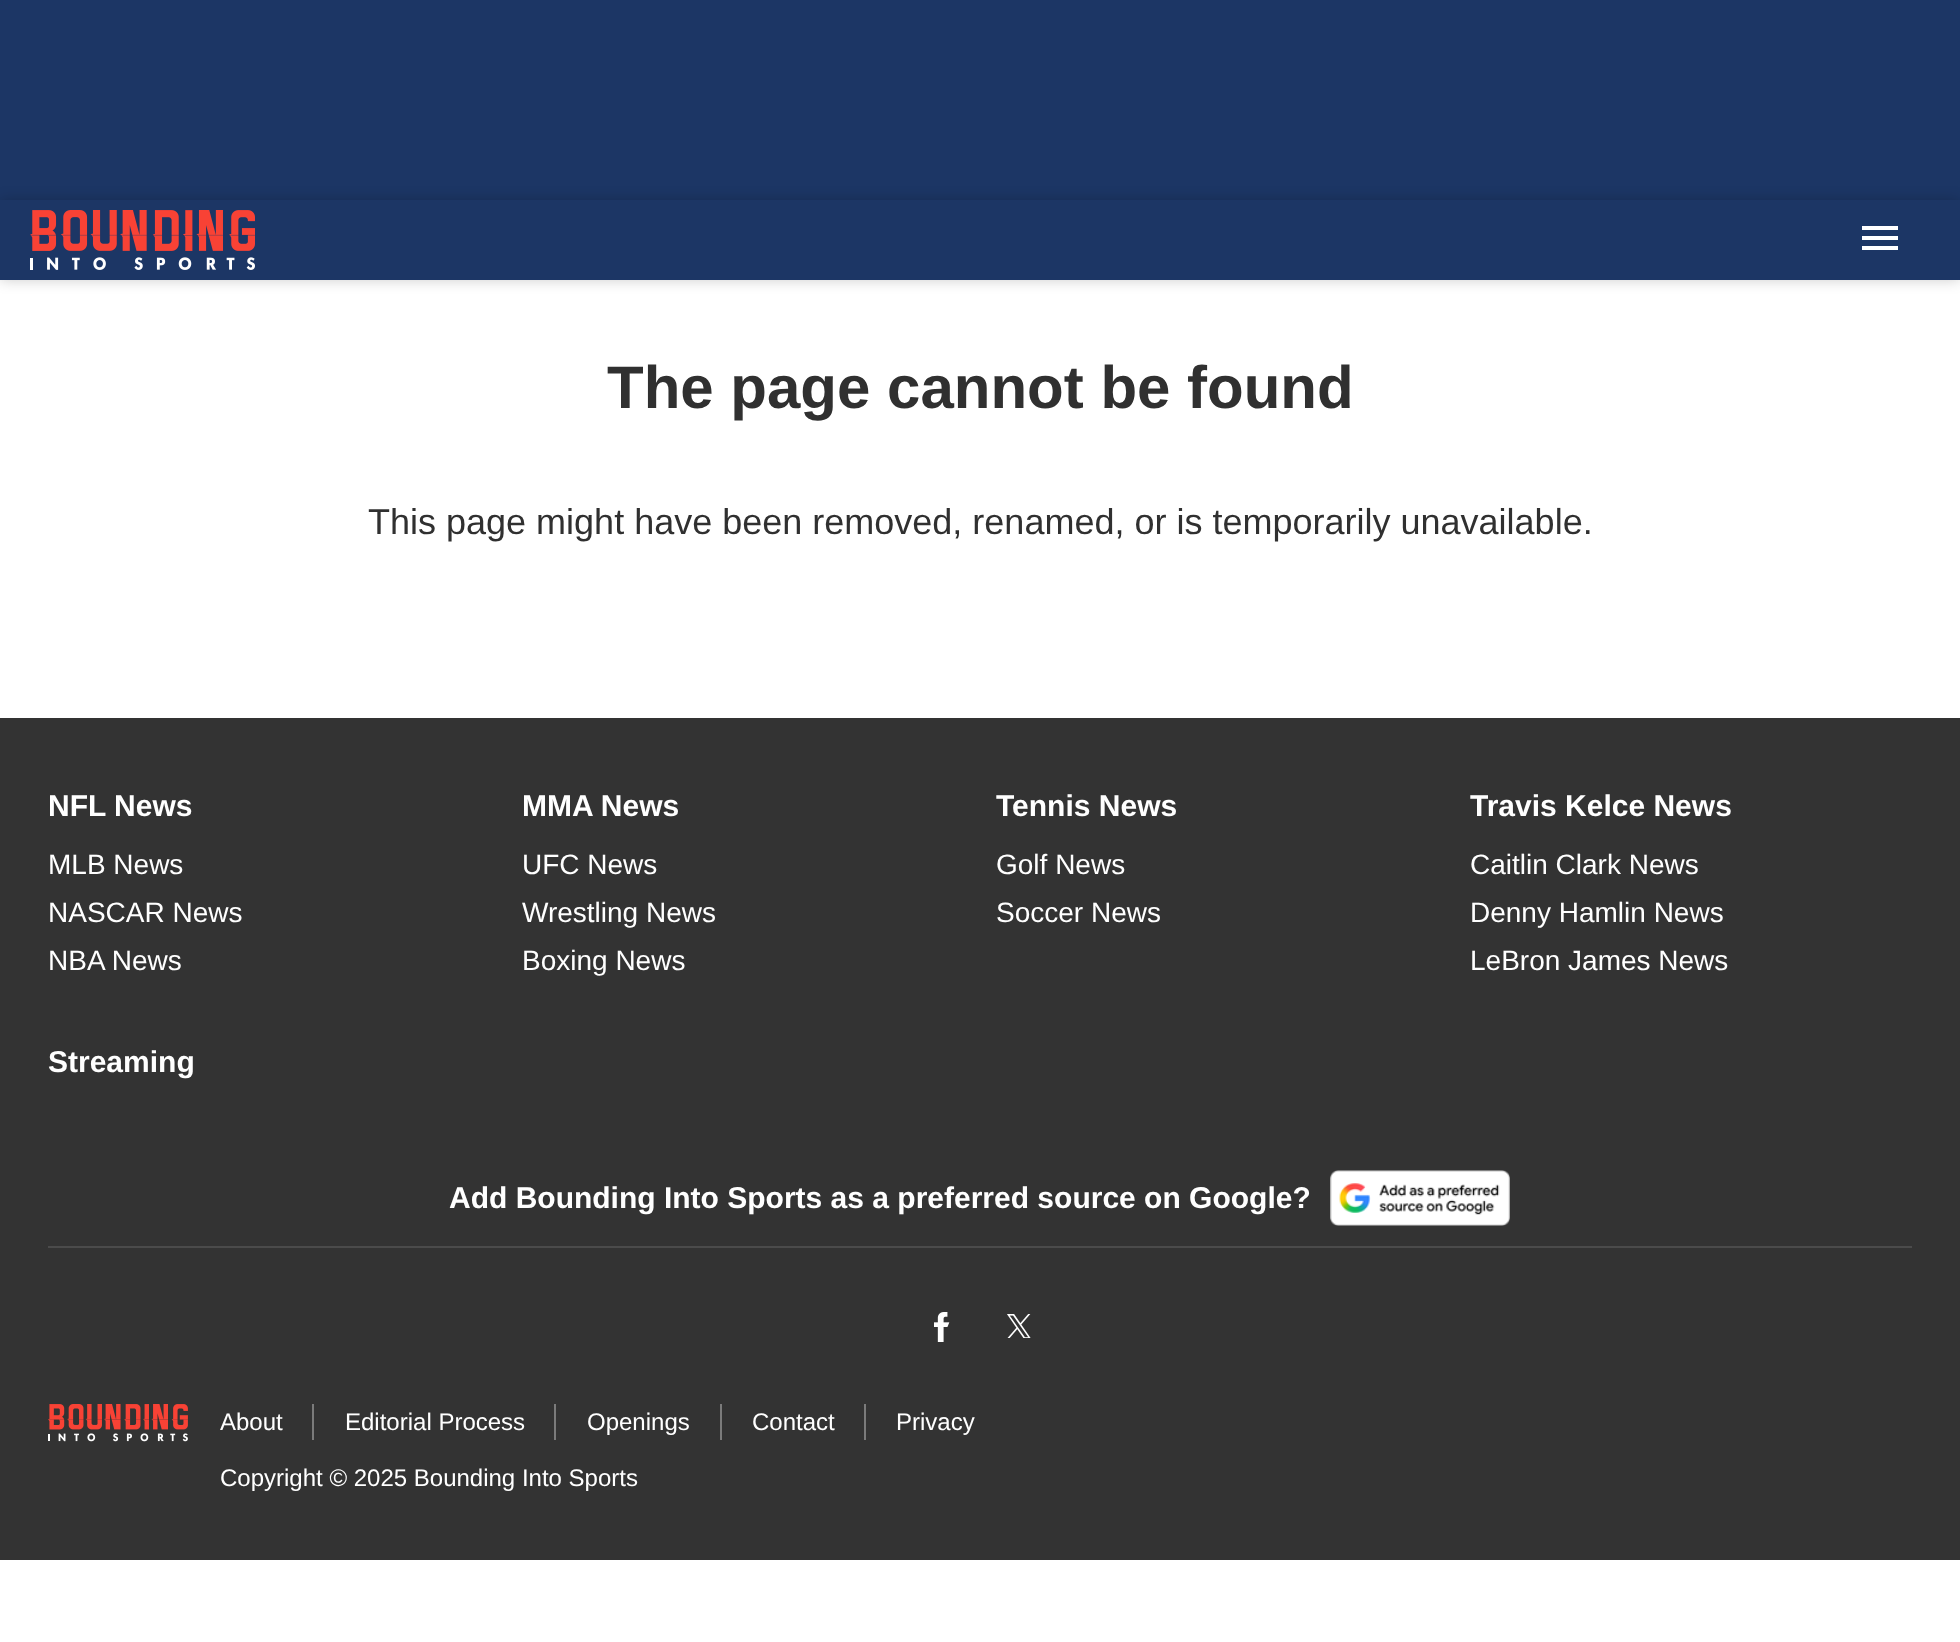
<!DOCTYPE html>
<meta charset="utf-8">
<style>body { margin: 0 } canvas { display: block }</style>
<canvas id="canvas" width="1960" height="1642"></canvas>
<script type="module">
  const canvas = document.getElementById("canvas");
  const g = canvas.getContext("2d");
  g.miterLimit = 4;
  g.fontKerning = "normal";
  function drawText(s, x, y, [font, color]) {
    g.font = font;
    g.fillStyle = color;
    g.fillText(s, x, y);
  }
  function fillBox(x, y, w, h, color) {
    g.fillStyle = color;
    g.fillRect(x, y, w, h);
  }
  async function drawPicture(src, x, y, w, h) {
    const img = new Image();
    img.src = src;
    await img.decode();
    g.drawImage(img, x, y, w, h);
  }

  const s1 = ["bold 60px Liberation Sans", "#303030"];
  const s2 = ["36px Liberation Sans", "#303030"];
  const s3 = ["bold 30px Liberation Sans", "#FFFFFF"];
  const s4 = ["28px Liberation Sans", "#FFFFFF"];
  const s5 = ["24px Liberation Sans", "#FFFFFF"];

  fillBox(0, 0, 1960, 1642, "#FFFFFF");
  fillBox(0, 0, 1960, 200, "#1C3665");
  g.fillStyle = "rgba(0, 0, 0, 0.2)";
  g.filter = "blur(7px)";
  g.beginPath();
  g.rect(0, 200, 1960, 80);
  g.fill();
  g.filter = "none";
  fillBox(0, 200, 1960, 80, "#1C3665");
  await drawPicture("pic1.png", 30, 210, 225, 60);
  fillBox(1862, 226, 36, 4, "#FFFFFF");
  fillBox(1862, 236, 36, 4, "#FFFFFF");
  fillBox(1862, 246, 36, 4, "#FFFFFF");
  drawText("The page cannot be found", 607, 408, s1);
  drawText("This page might have been removed, renamed, or is temporarily unavailable.", 368, 534, s2);
  fillBox(0, 718, 1960, 842, "#333333");
  drawText("NFL News", 48, 816, s3);
  drawText("MLB News", 48, 874, s4);
  drawText("NASCAR News", 48, 922, s4);
  drawText("NBA News", 48, 970, s4);
  drawText("MMA News", 522, 816, s3);
  drawText("UFC News", 522, 874, s4);
  drawText("Wrestling News", 522, 922, s4);
  drawText("Boxing News", 522, 970, s4);
  drawText("Tennis News", 996, 816, s3);
  drawText("Golf News", 996, 874, s4);
  drawText("Soccer News", 996, 922, s4);
  drawText("Travis Kelce News", 1470, 816, s3);
  drawText("Caitlin Clark News", 1470, 874, s4);
  drawText("Denny Hamlin News", 1470, 922, s4);
  drawText("LeBron James News", 1470, 970, s4);
  drawText("Streaming", 48, 1072, s3);
  drawText("Add Bounding Into Sports as a preferred source on Google?", 449, 1208, s3);
  await drawPicture("pic2.png", 1330, 1170, 180, 56);
  fillBox(48, 1246, 1864, 2, "#4B4B4B");
  await drawPicture("pic3.png", 934, 1312, 16, 30);
  await drawPicture("pic4.png", 1007, 1314, 24, 24);
  await drawPicture("pic5.png", 48, 1404, 140, 38);
  fillBox(312, 1404, 2, 36, "#7B7B7B");
  drawText("About", 220, 1430, s5);
  fillBox(554, 1404, 2, 36, "#7B7B7B");
  drawText("Editorial Process", 345, 1430, s5);
  fillBox(720, 1404, 2, 36, "#7B7B7B");
  drawText("Openings", 587, 1430, s5);
  fillBox(864, 1404, 2, 36, "#7B7B7B");
  drawText("Contact", 752, 1430, s5);
  drawText("Privacy", 896, 1430, s5);
  drawText("Copyright © 2025 Bounding Into Sports", 220, 1486, s5);
</script>
